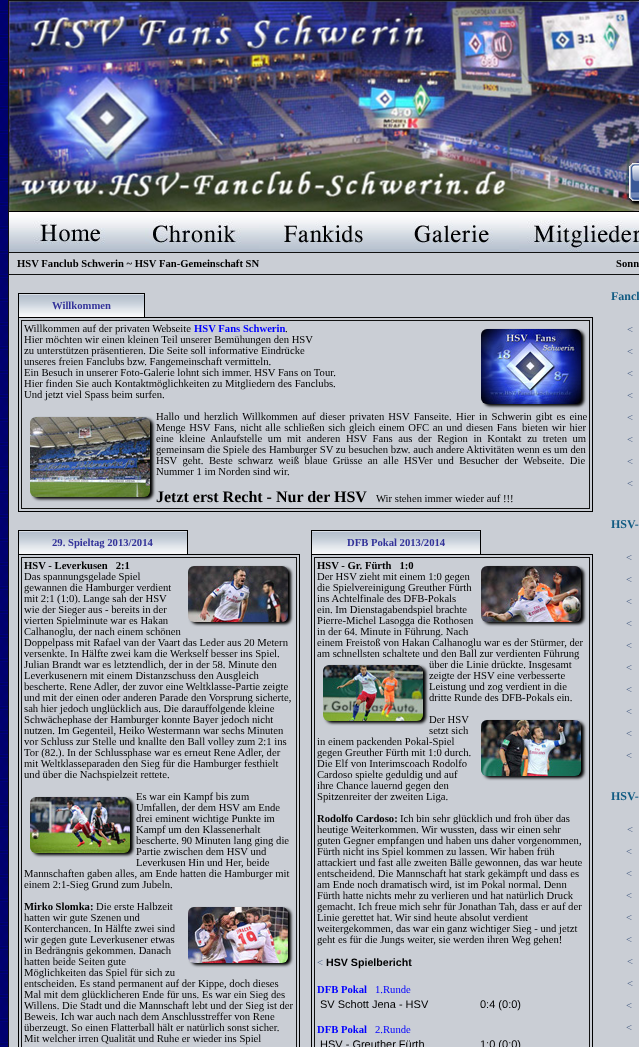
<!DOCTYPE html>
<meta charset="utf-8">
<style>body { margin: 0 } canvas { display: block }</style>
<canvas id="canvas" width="639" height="1047"></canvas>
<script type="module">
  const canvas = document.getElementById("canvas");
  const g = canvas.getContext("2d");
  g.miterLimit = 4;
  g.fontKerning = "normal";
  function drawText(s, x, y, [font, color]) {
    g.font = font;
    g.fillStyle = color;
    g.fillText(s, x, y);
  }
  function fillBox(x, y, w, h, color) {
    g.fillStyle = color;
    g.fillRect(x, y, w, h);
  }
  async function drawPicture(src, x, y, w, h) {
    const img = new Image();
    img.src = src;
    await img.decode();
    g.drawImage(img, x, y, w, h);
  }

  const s1 = ["bold 10.65px Liberation Serif", "#000000"];
  const s2 = ["bold 10.65px Liberation Serif", "#333399"];
  const s3 = ["10.65px Liberation Serif", "#000000"];
  const s4 = ["bold 10.65px Liberation Serif", "#0000FF"];
  const s5 = ["bold 16px Liberation Serif", "#000000"];
  const s6 = ["10.65px Liberation Serif", "#445B82"];
  const s7 = ["bold 10.65px Liberation Sans", "#000000"];
  const s8 = ["10.65px Liberation Serif", "#0000FF"];
  const s9 = ["11px Liberation Sans", "#000000"];
  const s10 = ["bold 12px Liberation Serif", "#115B82"];

  fillBox(0, 0, 639, 1047, "#FFFFFF");
  await drawPicture("pic1.png", 0, 0, 8, 1047);
  fillBox(8, 0, 631, 1, "#111111");
  fillBox(8, 0, 1, 1047, "#111111");
  await drawPicture("pic2.png", 9, 1, 630, 210);
  g.fillStyle = "#000000";
  g.filter = "blur(1px)";
  g.beginPath();
  g.roundRect(630, 164, 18, 40, 6);
  g.fill();
  g.filter = "none";
  await drawPicture("pic3.png", 629, 163, 10, 38);
  fillBox(9, 249, 510, 3, "#B4BFCD");
  fillBox(9, 211, 630, 1, "#000000");
  await drawPicture("pic4.png", 9, 212, 120, 37);
  await drawPicture("pic5.png", 129, 212, 130, 37);
  await drawPicture("pic6.png", 259, 212, 130, 37);
  await drawPicture("pic7.png", 389, 212, 130, 37);
  await drawPicture("pic8.png", 519, 212, 120, 40);
  fillBox(8, 252, 631, 1, "#111111");
  fillBox(9, 253, 630, 21, "#CACED5");
  drawText("HSV Fanclub Schwerin ~ HSV Fan-Gemeinschaft SN", 17, 267, s1);
  drawText("Sonn", 616, 267, s1);
  fillBox(8, 274, 631, 1, "#111111");
  fillBox(9, 275, 630, 772, "#CACED5");
  await drawPicture("pic9.png", 19, 294, 125, 23);
  fillBox(144, 317, 449, 1, "#000000");
  fillBox(144, 293, 1, 25, "#000000");
  fillBox(18, 293, 127, 1, "#000000");
  fillBox(18, 317, 127, 1, "#000000");
  fillBox(18, 293, 1, 25, "#000000");
  drawText("Willkommen", 52, 309, s2);
  fillBox(592, 318, 1, 194, "#000000");
  fillBox(18, 511, 575, 1, "#000000");
  fillBox(18, 318, 1, 194, "#000000");
  fillBox(21, 320, 569, 1, "#111111");
  fillBox(589, 320, 1, 189, "#111111");
  fillBox(21, 508, 569, 1, "#111111");
  fillBox(21, 320, 1, 189, "#111111");
  drawText("Willkommen auf der privaten Webseite", 24, 332, s3);
  drawText("HSV Fans Schwerin", 194, 332, s4);
  drawText(".", 285, 332, s3);
  g.filter = "blur(1.5px)";
  g.beginPath();
  g.roundRect(484, 331, 100, 75, 6);
  g.fill();
  g.filter = "none";
  await drawPicture("pic10.png", 481, 329, 100, 75);
  drawText("Hier möchten wir einen kleinen Teil unserer Bemühungen den HSV", 24, 343, s3);
  drawText("zu unterstützen präsentieren. Die Seite soll informative Eindrücke", 24, 354, s3);
  drawText("unseres freien Fanclubs bzw. Fangemeinschaft vermitteln.", 24, 365, s3);
  drawText("Ein Besuch in unserer Foto-Galerie lohnt sich immer. HSV Fans on Tour.", 24, 376, s3);
  drawText("Hier finden Sie auch Kontaktmöglichkeiten zu Mitgliedern des Fanclubs.", 24, 387, s3);
  drawText("Und jetzt viel Spass beim surfen.", 24, 398, s3);
  g.filter = "blur(1.5px)";
  g.beginPath();
  g.roundRect(33, 419, 120, 80, 6);
  g.fill();
  g.filter = "none";
  await drawPicture("pic11.png", 30, 417, 120, 80);
  g.wordSpacing = "1.5px";
  drawText("Hallo und herzlich Willkommen auf dieser privaten HSV Fanseite.", 156, 420, s3);
  drawText("Hier in Schwerin gibt es eine", 456, 420, s3);
  g.wordSpacing = "1px";
  drawText("Menge HSV Fans, nicht alle schließen sich gleich einem OFC an und diesen Fans", 156, 431, s3);
  drawText("bieten wir hier", 522, 431, s3);
  g.wordSpacing = "2.9px";
  drawText("eine kleine Anlaufstelle um mit anderen HSV Fans aus der Region in Kontakt zu treten um", 156, 442, s3);
  g.wordSpacing = "0px";
  drawText("gemeinsam die Spiele des Hamburger SV zu besuchen bzw. auch andere Aktivitäten wenn es um den", 156, 453, s3);
  g.wordSpacing = "2.75px";
  drawText("HSV geht.", 156, 464, s3);
  drawText("Beste schwarz weiß blaue Grüsse an alle HSVer und Besucher der Webseite. Die", 209, 464, s3);
  g.wordSpacing = "0px";
  drawText("Nummer 1 im Norden sind wir.", 156, 475, s3);
  drawText("Jetzt erst Recht - Nur der HSV", 156, 502, s5);
  drawText("Wir stehen immer wieder auf !!!", 376, 502, s3);
  await drawPicture("pic12.png", 19, 531, 168, 23);
  fillBox(187, 554, 113, 1, "#000000");
  fillBox(187, 530, 1, 25, "#000000");
  fillBox(18, 530, 170, 1, "#000000");
  fillBox(18, 554, 170, 1, "#000000");
  fillBox(18, 530, 1, 517, "#000000");
  drawText("29. Spieltag 2013/2014", 52, 546, s2);
  fillBox(299, 555, 1, 492, "#000000");
  fillBox(21, 557, 276, 1, "#111111");
  fillBox(296, 557, 1, 490, "#111111");
  fillBox(21, 557, 1, 490, "#111111");
  drawText("HSV - Leverkusen   2:1", 24, 569, s1);
  g.filter = "blur(1.5px)";
  g.beginPath();
  g.roundRect(191, 568, 100, 56, 6);
  g.fill();
  g.filter = "none";
  await drawPicture("pic13.png", 188, 566, 100, 56);
  drawText("Das spannungsgelade Spiel", 24, 580, s3);
  drawText("gewannen die Hamburger verdient", 24, 591, s3);
  drawText("mit 2:1 (1:0). Lange sah der HSV", 24, 602, s3);
  drawText("wie der Sieger aus - bereits in der", 24, 613, s3);
  drawText("vierten Spielminute war es Hakan", 24, 624, s3);
  drawText("Calhanoglu, der nach einem schönen", 24, 635, s3);
  drawText("Doppelpass mit Rafael van der Vaart das Leder aus 20 Metern", 24, 646, s3);
  drawText("versenkte. In Hälfte zwei kam die Werkself besser ins Spiel.", 24, 657, s3);
  drawText("Julian Brandt war es letztendlich, der in der 58. Minute den", 24, 668, s3);
  drawText("Leverkusenern mit einem Distanzschuss den Ausgleich", 24, 679, s3);
  drawText("bescherte. Rene Adler, der zuvor eine Weltklasse-Partie zeigte", 24, 690, s3);
  drawText("und mit der einen oder anderen Parade den Vorsprung sicherte,", 24, 701, s3);
  drawText("sah hier jedoch unglücklich aus. Die darauffolgende kleine", 24, 712, s3);
  drawText("Schwächephase der Hamburger konnte Bayer jedoch nicht", 24, 723, s3);
  drawText("nutzen. Im Gegenteil, Heiko Westermann war sechs Minuten", 24, 734, s3);
  drawText("vor Schluss zur Stelle und knallte den Ball volley zum 2:1 ins", 24, 745, s3);
  drawText("Tor (82.). In der Schlussphase war es erneut Rene Adler, der", 24, 756, s3);
  drawText("mit Weltklasseparaden den Sieg für die Hamburger festhielt", 24, 767, s3);
  drawText("und über die Nachspielzeit rettete.", 24, 778, s3);
  g.filter = "blur(1.5px)";
  g.beginPath();
  g.roundRect(33, 799, 100, 56, 6);
  g.fill();
  g.filter = "none";
  await drawPicture("pic14.png", 30, 797, 100, 56);
  drawText("Es war ein Kampf bis zum", 136, 800, s3);
  drawText("Umfallen, der dem HSV am Ende", 136, 811, s3);
  drawText("drei eminent wichtige Punkte im", 136, 822, s3);
  drawText("Kampf um den Klassenerhalt", 136, 833, s3);
  drawText("bescherte. 90 Minuten lang ging die", 136, 844, s3);
  drawText("Partie zwischen dem HSV und", 136, 855, s3);
  drawText("Leverkusen Hin und Her, beide", 136, 866, s3);
  drawText("Mannschaften gaben alles, am Ende hatten die Hamburger mit", 24, 877, s3);
  drawText("einem 2:1-Sieg Grund zum Jubeln.", 24, 888, s3);
  drawText("Mirko Slomka:", 24, 910, s1);
  drawText("Die erste Halbzeit", 96, 910, s3);
  g.filter = "blur(1.5px)";
  g.beginPath();
  g.roundRect(191, 909, 100, 56, 6);
  g.fill();
  g.filter = "none";
  await drawPicture("pic15.png", 188, 907, 100, 56);
  drawText("hatten wir gute Szenen und", 24, 921, s3);
  drawText("Konterchancen. In Hälfte zwei sind", 24, 932, s3);
  drawText("wir gegen gute Leverkusener etwas", 24, 943, s3);
  drawText("in Bedrängnis gekommen. Danach", 24, 954, s3);
  drawText("hatten beide Seiten gute", 24, 965, s3);
  drawText("Möglichkeiten das Spiel für sich zu", 24, 976, s3);
  drawText("entscheiden. Es stand permanent auf der Kippe, doch dieses", 24, 987, s3);
  drawText("Mal mit dem glücklicheren Ende für uns. Es war ein Sieg des", 24, 998, s3);
  drawText("Willens. Die Stadt und die Mannschaft lebt und der Sieg ist der", 24, 1009, s3);
  drawText("Beweis. Ich war auch nach dem Anschlusstreffer von Rene", 24, 1020, s3);
  drawText("überzeugt. So einen Flatterball hält er natürlich sonst sicher.", 24, 1031, s3);
  drawText("Mit welcher irren Qualität und Ruhe er wieder ins Spiel", 24, 1042, s3);
  await drawPicture("pic12.png", 312, 531, 168, 23);
  fillBox(480, 554, 113, 1, "#000000");
  fillBox(480, 530, 1, 25, "#000000");
  fillBox(311, 530, 170, 1, "#000000");
  fillBox(311, 554, 170, 1, "#000000");
  fillBox(311, 530, 1, 517, "#000000");
  drawText("DFB Pokal 2013/2014", 347, 546, s2);
  fillBox(592, 555, 1, 492, "#000000");
  fillBox(314, 557, 276, 1, "#111111");
  fillBox(589, 557, 1, 490, "#111111");
  fillBox(314, 557, 1, 490, "#111111");
  drawText("HSV - Gr. Fürth   1:0", 317, 569, s1);
  g.filter = "blur(1.5px)";
  g.beginPath();
  g.roundRect(484, 568, 100, 56, 6);
  g.fill();
  g.filter = "none";
  await drawPicture("pic16.png", 481, 566, 100, 56);
  drawText("Der HSV zieht mit einem 1:0 gegen", 317, 580, s3);
  drawText("die Spielvereinigung Greuther Fürth", 317, 591, s3);
  drawText("ins Achtelfinale des DFB-Pokals", 317, 602, s3);
  drawText("ein. Im Dienstagabendspiel brachte", 317, 613, s3);
  drawText("Pierre-Michel Lasogga die Rothosen", 317, 624, s3);
  drawText("in der 64. Minute in Führung. Nach", 317, 635, s3);
  drawText("einem Freistoß von Hakan Calhanoglu war es der Stürmer, der", 317, 646, s3);
  drawText("am schnellsten schaltete und den Ball zur verdienten Führung", 317, 657, s3);
  g.filter = "blur(1.5px)";
  g.beginPath();
  g.roundRect(326, 667, 100, 56, 6);
  g.fill();
  g.filter = "none";
  await drawPicture("pic17.png", 323, 665, 100, 56);
  drawText("über die Linie drückte. Insgesamt", 429, 668, s3);
  drawText("zeigte der HSV eine verbesserte", 429, 679, s3);
  drawText("Leistung und zog verdient in die", 429, 690, s3);
  drawText("dritte Runde des DFB-Pokals ein.", 429, 701, s3);
  drawText("Der HSV", 429, 723, s3);
  g.filter = "blur(1.5px)";
  g.beginPath();
  g.roundRect(484, 722, 100, 56, 6);
  g.fill();
  g.filter = "none";
  await drawPicture("pic18.png", 481, 720, 100, 56);
  drawText("setzt sich", 429, 734, s3);
  drawText("in einem packenden Pokal-Spiel", 317, 745, s3);
  drawText("gegen Greuther Fürth mit 1:0 durch.", 317, 756, s3);
  drawText("Die Elf von Interimscoach Rodolfo", 317, 767, s3);
  drawText("Cardoso spielte geduldig und auf", 317, 778, s3);
  drawText("ihre Chance lauernd gegen den", 317, 789, s3);
  drawText("Spitzenreiter der zweiten Liga.", 317, 800, s3);
  drawText("Rodolfo Cardoso:", 317, 822, s1);
  drawText("Ich bin sehr glücklich und froh über das", 400, 822, s3);
  drawText("heutige Weiterkommen. Wir wussten, dass wir einen sehr", 317, 833, s3);
  drawText("guten Gegner empfangen und haben uns daher vorgenommen,", 317, 844, s3);
  drawText("Fürth nicht ins Spiel kommen zu lassen. Wir haben früh", 317, 855, s3);
  drawText("attackiert und fast alle zweiten Bälle gewonnen, das war heute", 317, 866, s3);
  drawText("entscheidend. Die Mannschaft hat stark gekämpft und dass es", 317, 877, s3);
  drawText("am Ende noch dramatisch wird, ist im Pokal normal. Denn", 317, 888, s3);
  drawText("Fürth hatte nichts mehr zu verlieren und hat natürlich Druck", 317, 899, s3);
  drawText("gemacht. Ich freue mich sehr für Jonathan Tah, dass er auf der", 317, 910, s3);
  drawText("Linie gerettet hat. Wir sind heute absolut verdient", 317, 921, s3);
  drawText("weitergekommen, das war ein ganz wichtiger Sieg - und jetzt", 317, 932, s3);
  drawText("geht es für die Jungs weiter, sie werden ihren Weg gehen!", 317, 943, s3);
  drawText("<", 317, 966, s6);
  drawText("HSV Spielbericht", 326, 966, s7);
  drawText("DFB Pokal", 317, 993, s4);
  drawText("1.Runde", 375, 993, s8);
  drawText("SV Schott Jena - HSV", 320, 1008, s9);
  drawText("0:4 (0:0)", 480, 1008, s9);
  drawText("DFB Pokal", 317, 1033, s4);
  drawText("2.Runde", 375, 1033, s8);
  drawText("HSV - Greuther Fürth", 320, 1048, s9);
  drawText("1:0 (0:0)", 480, 1048, s9);
  drawText("Fancl", 611, 300, s10);
  drawText("<", 627, 333, s6);
  drawText("<", 627, 355, s6);
  drawText("<", 627, 377, s6);
  drawText("<", 627, 399, s6);
  drawText("<", 627, 421, s6);
  drawText("<", 627, 443, s6);
  drawText("<", 627, 465, s6);
  drawText("<", 627, 487, s6);
  drawText("HSV-", 611, 528, s10);
  drawText("<", 626, 561, s6);
  drawText("<", 626, 583, s6);
  drawText("<", 626, 605, s6);
  drawText("<", 626, 627, s6);
  drawText("<", 626, 649, s6);
  drawText("<", 626, 671, s6);
  drawText("<", 626, 693, s6);
  drawText("<", 626, 715, s6);
  drawText("<", 626, 737, s6);
  drawText("<", 626, 759, s6);
  drawText("HSV-", 611, 800, s10);
  drawText("<", 627, 833, s6);
  drawText("<", 626, 855, s6);
  drawText("<", 626, 877, s6);
  drawText("<", 626, 899, s6);
  drawText("<", 626, 921, s6);
  drawText("<", 626, 943, s6);
  drawText("<", 627, 965, s6);
  drawText("<", 627, 987, s6);
  drawText("<", 626, 1009, s6);
  drawText("<", 626, 1031, s6);
</script>
